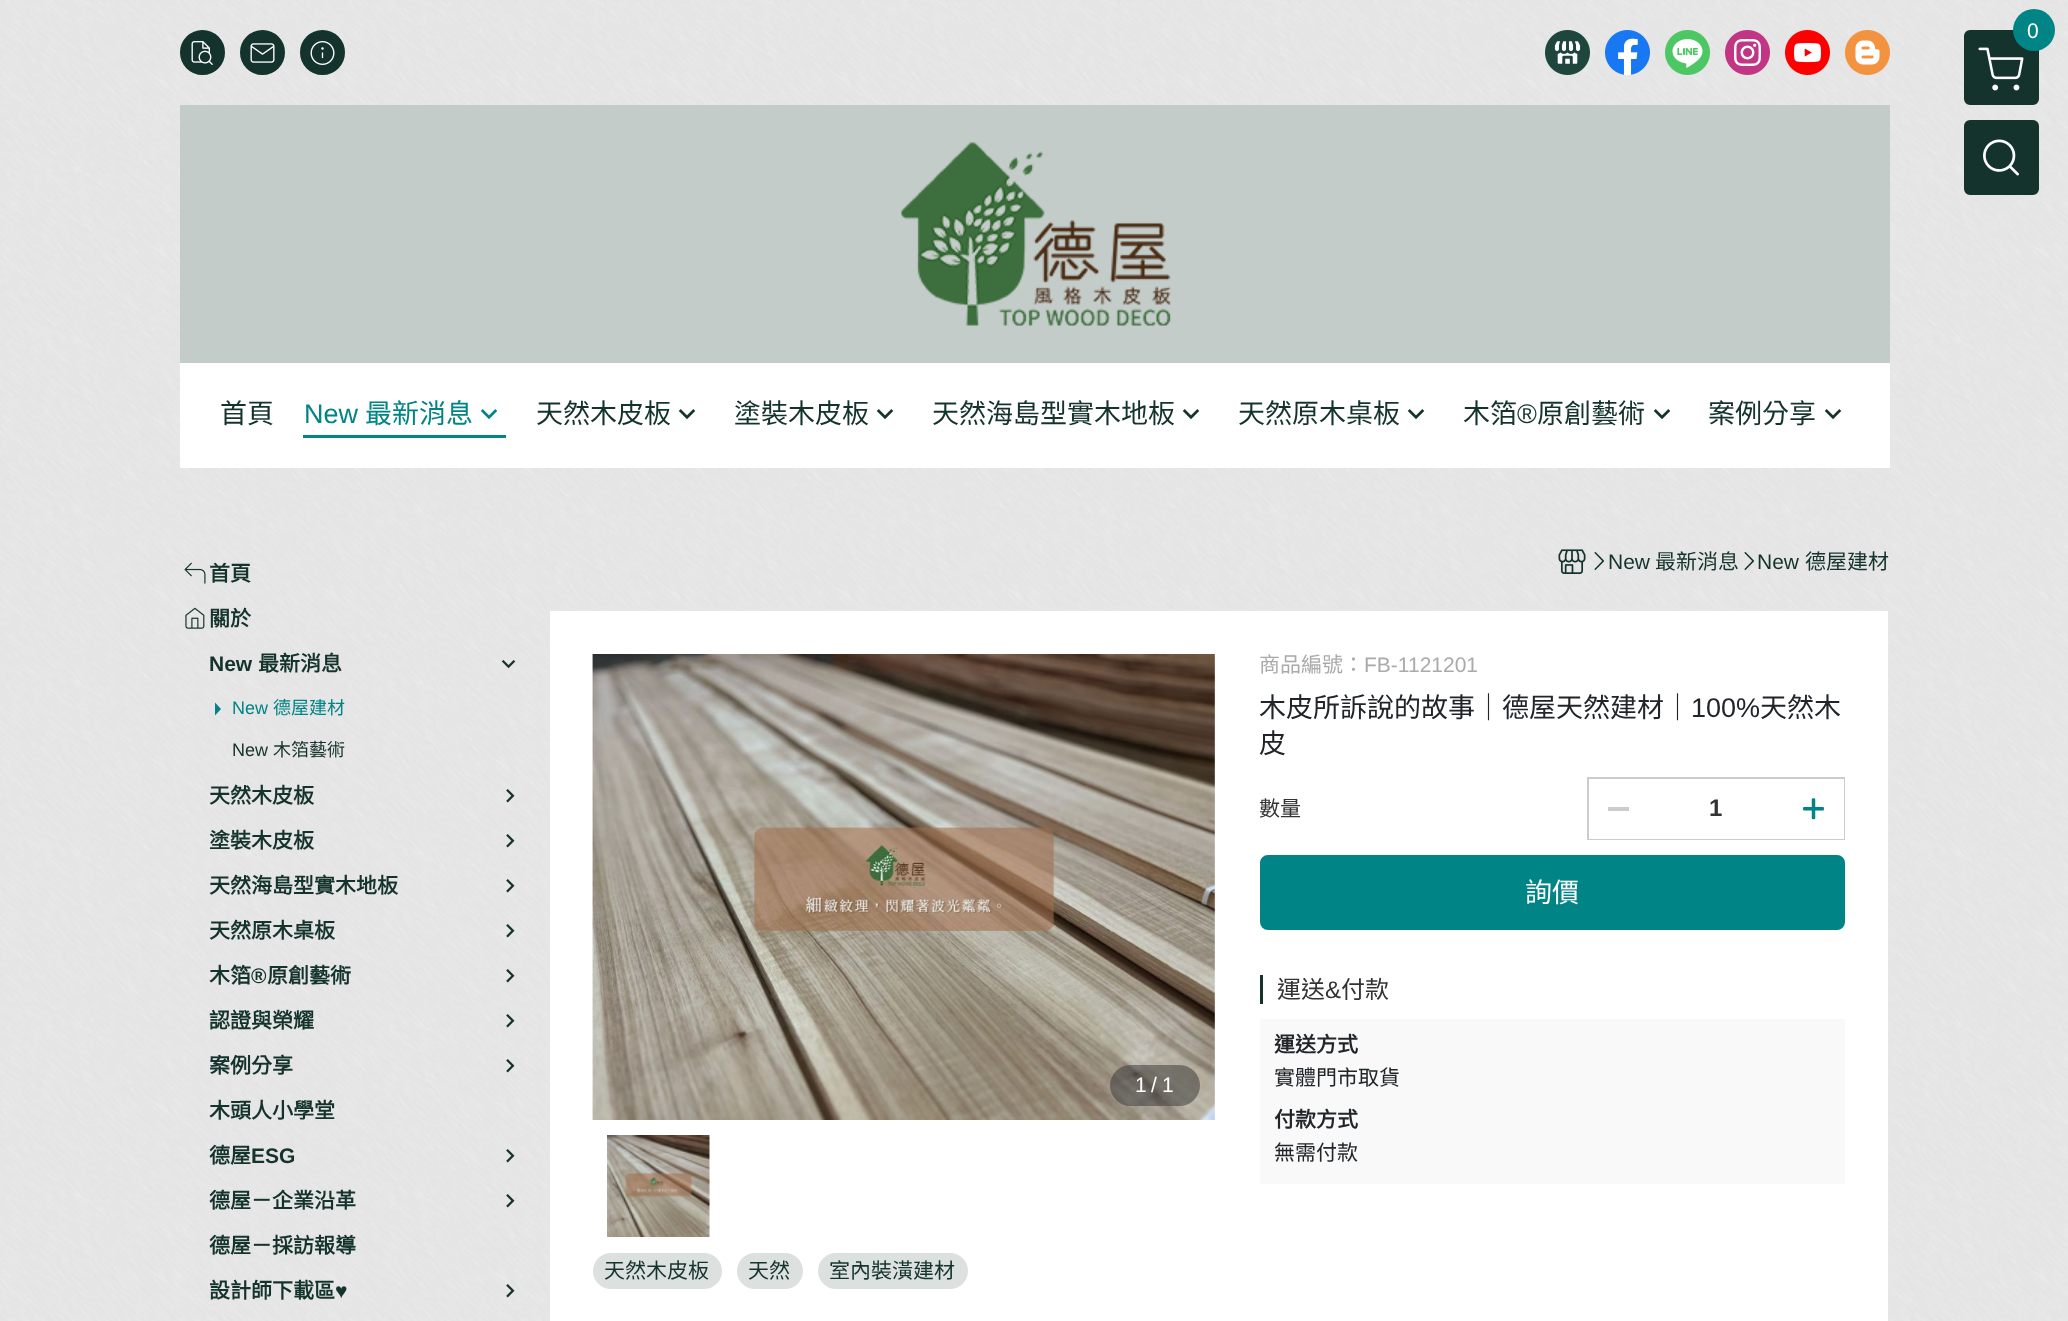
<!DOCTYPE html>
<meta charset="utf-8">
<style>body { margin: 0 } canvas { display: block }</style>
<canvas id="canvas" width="2068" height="1321"></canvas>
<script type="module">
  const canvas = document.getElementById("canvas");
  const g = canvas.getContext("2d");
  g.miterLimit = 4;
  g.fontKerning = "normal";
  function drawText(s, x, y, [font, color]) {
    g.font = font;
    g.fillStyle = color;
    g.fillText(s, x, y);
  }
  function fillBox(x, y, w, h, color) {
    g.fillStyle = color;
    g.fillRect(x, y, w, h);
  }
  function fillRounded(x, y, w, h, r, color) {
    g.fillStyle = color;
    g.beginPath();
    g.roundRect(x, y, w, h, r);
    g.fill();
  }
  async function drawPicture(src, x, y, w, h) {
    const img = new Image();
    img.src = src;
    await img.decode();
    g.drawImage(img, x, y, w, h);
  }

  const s1 = ["21px Liberation Sans", "#FFFFFF"];
  const s2 = ["27px Noto Sans CJK TC", "#14332C"];
  const s3 = ["27px Liberation Sans", "#008486"];
  const s4 = ["27px Noto Sans CJK TC", "#008486"];
  const s5 = ["27px Liberation Sans", "#14332C"];
  const s6 = ["bold 21px Noto Sans CJK TC", "#14332C"];
  const s7 = ["bold 21px Liberation Sans", "#14332C"];
  const s8 = ["18px Liberation Sans", "#008486"];
  const s9 = ["18px Noto Sans CJK TC", "#008486"];
  const s10 = ["18px Liberation Sans", "#14332C"];
  const s11 = ["18px Noto Sans CJK TC", "#14332C"];
  const s12 = ["21px Liberation Sans", "#14332C"];
  const s13 = ["21px Noto Sans CJK TC", "#14332C"];
  const s14 = ["21px Noto Sans CJK TC", "#AAAAAA"];
  const s15 = ["21px Liberation Sans", "#AAAAAA"];
  const s16 = ["27px Noto Sans CJK TC", "#212529"];
  const s17 = ["27px Liberation Sans", "#212529"];
  const s18 = ["21px Noto Sans CJK TC", "#333333"];
  const s19 = ["bold 24px Liberation Sans", "#333333"];
  const s20 = ["27px Noto Sans CJK TC", "#FFFFFF"];
  const s21 = ["24px Noto Sans CJK TC", "#333333"];
  const s22 = ["24px Liberation Sans", "#333333"];
  const s23 = ["bold 21px Noto Sans CJK TC", "#212529"];
  const s24 = ["21px Noto Sans CJK TC", "#212529"];

  fillBox(0, 0, 2068, 1321, "#FFFFFF");
  await drawPicture("pic1.png", 0, 0, 2068, 1321);
  g.fillStyle = "#14332C";
  g.beginPath();
  g.arc(202.5, 52.5, 21.5, 0, Math.PI * 2);
  g.fill();
  g.strokeStyle = "#14332C";
  g.lineWidth = 2;
  g.stroke();
  await drawPicture("pic2.png", 191, 41, 22, 24);
  g.beginPath();
  g.arc(262.5, 52.5, 21.5, 0, Math.PI * 2);
  g.fill();
  g.stroke();
  await drawPicture("pic3.png", 250, 43, 25, 20);
  g.beginPath();
  g.arc(322.5, 52.5, 21.5, 0, Math.PI * 2);
  g.fill();
  g.stroke();
  await drawPicture("pic4.png", 310, 41, 25, 24);
  await drawPicture("pic5.png", 1545, 30, 45, 45);
  await drawPicture("pic6.png", 1605, 30, 45, 45);
  await drawPicture("pic7.png", 1665, 30, 45, 45);
  await drawPicture("pic8.png", 1725, 30, 45, 45);
  await drawPicture("pic9.png", 1785, 30, 45, 45);
  await drawPicture("pic10.png", 1845, 30, 45, 45);
  g.beginPath();
  g.roundRect(1965, 31, 73, 73, 5);
  g.fill();
  g.stroke();
  await drawPicture("pic11.png", 1978, 47, 46, 44);
  g.fillStyle = "#008486";
  g.beginPath();
  g.arc(2034, 30, 21, 0, Math.PI * 2);
  g.fill();
  g.letterSpacing = "2px";
  drawText("0", 2027, 38, s1);
  g.fillStyle = "#14332C";
  g.beginPath();
  g.roundRect(1965, 121, 73, 73, 5);
  g.fill();
  g.stroke();
  await drawPicture("pic12.png", 1983, 139, 36, 37);
  fillBox(180, 105, 1710, 258, "#C3CCC9");
  await drawPicture("pic13.png", 901, 142, 270, 184);
  fillBox(180, 363, 1710, 105, "#FFFFFF");
  g.letterSpacing = "0px";
  drawText("首頁", 220, 423, s2);
  fillBox(303, 435, 203, 3, "#008486");
  drawText("New", 304, 423, s3);
  drawText("最新消息", 365, 423, s4);
  await drawPicture("pic14.png", 480, 409, 18, 11);
  drawText("天然木皮板", 536, 423, s2);
  await drawPicture("pic15.png", 678, 409, 18, 11);
  drawText("塗裝木皮板", 734, 423, s2);
  await drawPicture("pic15.png", 876, 409, 18, 11);
  drawText("天然海島型實木地板", 932, 423, s2);
  await drawPicture("pic15.png", 1182, 409, 18, 11);
  drawText("天然原木桌板", 1238, 423, s2);
  await drawPicture("pic15.png", 1407, 409, 18, 11);
  drawText("木箔", 1463, 423, s2);
  drawText("®", 1517, 423, s5);
  drawText("原創藝術", 1537, 423, s2);
  await drawPicture("pic15.png", 1653, 409, 18, 11);
  drawText("案例分享", 1708, 423, s2);
  await drawPicture("pic15.png", 1824, 409, 18, 11);
  await drawPicture("pic16.png", 184, 562, 22, 22);
  drawText("首頁", 209, 581, s6);
  await drawPicture("pic17.png", 185, 607, 20, 22);
  drawText("關於", 209, 626, s6);
  drawText("New", 209, 671, s7);
  drawText("最新消息", 258, 671, s6);
  await drawPicture("pic18.png", 501, 660, 15, 9);
  g.fillStyle = "#008486";
  g.beginPath();
  g.moveTo(215, 715.5);
  g.lineTo(215, 702.5);
  g.lineTo(221, 709);
  g.closePath();
  g.fill();
  drawText("New", 232, 714, s8);
  drawText("德屋建材", 273, 714, s9);
  drawText("New", 232, 756, s10);
  drawText("木箔藝術", 273, 756, s11);
  drawText("天然木皮板", 209, 803, s6);
  await drawPicture("pic19.png", 506, 789, 9, 14);
  drawText("塗裝木皮板", 209, 848, s6);
  await drawPicture("pic20.png", 506, 834, 9, 14);
  drawText("天然海島型實木地板", 209, 893, s6);
  await drawPicture("pic21.png", 506, 879, 9, 14);
  drawText("天然原木桌板", 209, 938, s6);
  await drawPicture("pic22.png", 506, 924, 9, 14);
  drawText("木箔", 209, 983, s6);
  drawText("®", 251, 983, s7);
  drawText("原創藝術", 267, 983, s6);
  await drawPicture("pic23.png", 506, 969, 9, 14);
  drawText("認證與榮耀", 209, 1028, s6);
  await drawPicture("pic24.png", 506, 1014, 9, 14);
  drawText("案例分享", 209, 1073, s6);
  await drawPicture("pic25.png", 506, 1059, 9, 14);
  drawText("木頭人小學堂", 209, 1118, s6);
  drawText("德屋", 209, 1163, s6);
  drawText("ESG", 251, 1163, s7);
  await drawPicture("pic26.png", 506, 1149, 9, 14);
  drawText("德屋－企業沿革", 209, 1208, s6);
  await drawPicture("pic27.png", 506, 1194, 9, 14);
  drawText("德屋－採訪報導", 209, 1253, s6);
  drawText("設計師下載區", 209, 1298, s6);
  drawText("♥", 335, 1298, s7);
  await drawPicture("pic28.png", 506, 1284, 9, 14);
  await drawPicture("pic29.png", 1558, 549, 28, 25);
  await drawPicture("pic30.png", 1594, 552, 11, 18);
  drawText("New", 1608, 569, s12);
  drawText("最新消息", 1655, 569, s13);
  await drawPicture("pic31.png", 1744, 552, 11, 18);
  drawText("New", 1757, 569, s12);
  drawText("德屋建材", 1805, 569, s13);
  fillBox(550, 611, 1338, 710, "#FFFFFF");
  g.strokeStyle = "#CCCCCC";
  g.strokeRect(1588, 778, 256, 61);
  fillBox(1260, 975, 3, 29, "#14332C");
  fillBox(1260, 1019, 585, 165, "#F9F9F9");
  g.strokeStyle = "#E6E6E6";
  g.strokeRect(549, 610, 1340, 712);
  await drawPicture("pic32.png", 592, 654, 623, 466);
  fillRounded(1110, 1065, 90, 41, 20.5, "rgba(51, 51, 51, 0.5)");
  drawText("1", 1135, 1092, s1);
  drawText("/", 1151, 1092, s1);
  drawText("1", 1162, 1092, s1);
  await drawPicture("pic33.png", 607, 1135, 103, 102);
  fillRounded(593, 1253, 129, 36, 18, "#DCE0DF");
  drawText("天然木皮板", 604, 1278, s13);
  fillRounded(737, 1253, 66, 36, 18, "#DCE0DF");
  drawText("天然", 748, 1278, s13);
  fillRounded(818, 1253, 150, 36, 18, "#DCE0DF");
  drawText("室內裝潢建材", 829, 1278, s13);
  drawText("商品編號：", 1259, 672, s14);
  drawText("FB-1121201", 1364, 672, s15);
  drawText("木皮所訴說的故事｜德屋天然建材｜", 1259, 717, s16);
  drawText("100%", 1691, 717, s17);
  drawText("天然木", 1760, 717, s16);
  drawText("皮", 1259, 753, s16);
  drawText("數量", 1259, 816, s18);
  drawText("1", 1709, 816, s19);
  fillBox(1784, 779, 60, 60, "#FFFFFF");
  await drawPicture("pic34.png", 1803, 798, 21, 22);
  fillBox(1589, 838, 195, 1, "#FFFFFF");
  fillBox(1608, 807, 21, 4, "#CCCCCC");
  g.fillStyle = "#008486";
  g.beginPath();
  g.roundRect(1261, 856, 583, 73, 7);
  g.fill();
  g.strokeStyle = "#008486";
  g.stroke();
  drawText("詢價", 1525, 902, s20);
  drawText("運送", 1277, 998, s21);
  drawText("&", 1325, 998, s22);
  drawText("付款", 1341, 998, s21);
  drawText("運送方式", 1274, 1052, s23);
  drawText("實體門市取貨", 1274, 1085, s24);
  drawText("付款方式", 1274, 1127, s23);
  drawText("無需付款", 1274, 1160, s24);
</script>
